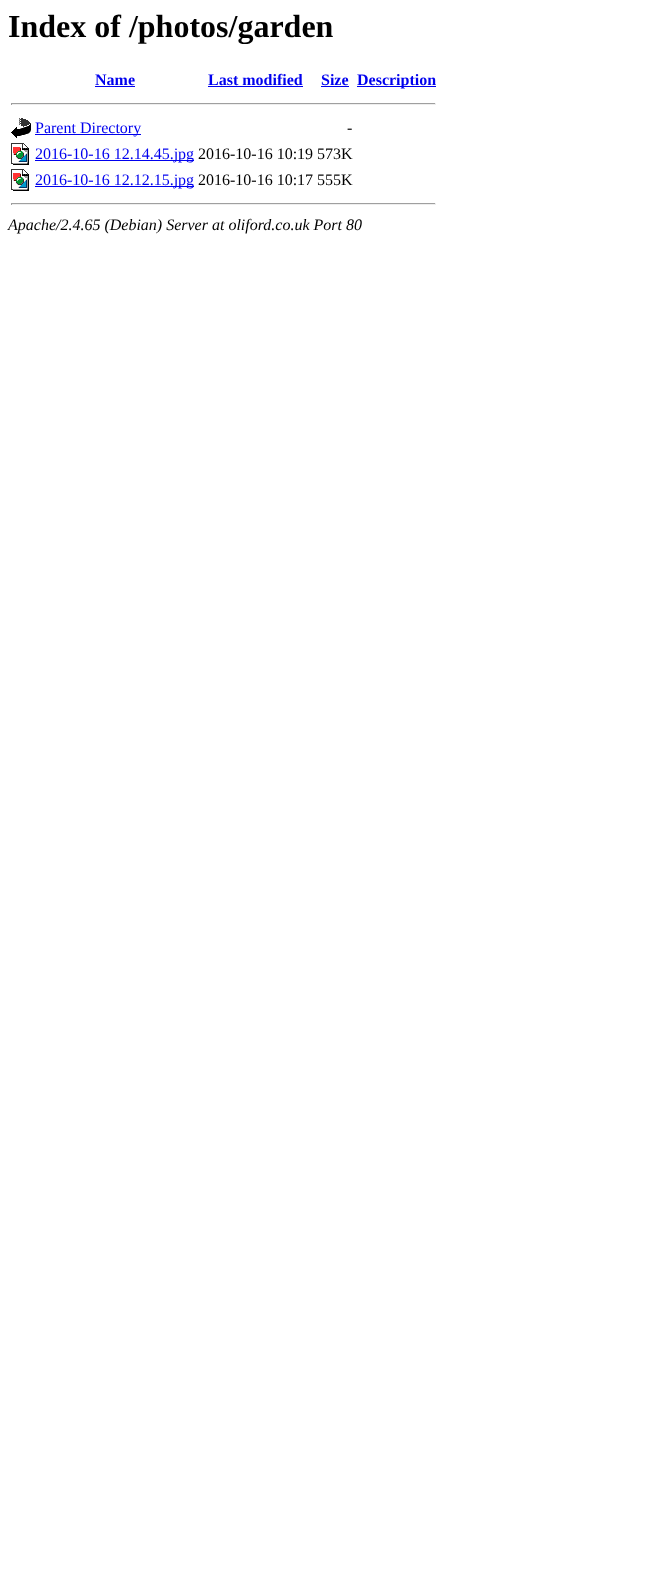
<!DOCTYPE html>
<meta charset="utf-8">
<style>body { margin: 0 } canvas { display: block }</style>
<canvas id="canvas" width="649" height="1576"></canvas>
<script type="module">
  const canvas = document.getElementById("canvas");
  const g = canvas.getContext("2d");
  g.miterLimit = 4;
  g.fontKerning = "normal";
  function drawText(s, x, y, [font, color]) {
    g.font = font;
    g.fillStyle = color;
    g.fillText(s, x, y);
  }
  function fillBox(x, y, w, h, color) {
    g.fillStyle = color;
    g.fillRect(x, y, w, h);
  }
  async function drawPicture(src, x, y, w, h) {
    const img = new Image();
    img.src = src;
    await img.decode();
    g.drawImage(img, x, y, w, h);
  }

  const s1 = ["bold 32px Liberation Serif", "#000000"];
  const s2 = ["bold 16px Liberation Serif", "#0000EE"];
  const s3 = ["16px Liberation Serif", "#0000EE"];
  const s4 = ["16px Liberation Serif", "#000000"];
  const s5 = ["italic 16px Liberation Serif", "#000000"];

  fillBox(0, 0, 649, 1576, "#FFFFFF");
  drawText("Index of /photos/garden", 8, 37, s1);
  drawText("Name", 95, 85, s2);
  fillBox(95, 86, 40, 1, "#0000EE");
  drawText("Last modified", 208, 85, s2);
  fillBox(208, 86, 95, 1, "#0000EE");
  drawText("Size", 321, 85, s2);
  fillBox(321, 86, 28, 1, "#0000EE");
  fillBox(357, 86, 79, 1, "#0000EE");
  drawText("Description", 357, 85, s2);
  fillBox(11, 103, 425, 1, "#9F9F9F");
  fillBox(435, 103, 1, 2, "#EEEEEE");
  fillBox(11, 104, 425, 1, "#EEEEEE");
  fillBox(11, 103, 1, 2, "#9F9F9F");
  await drawPicture("pic1.png", 11, 118, 20, 20);
  fillBox(35, 134, 106, 1, "#0000EE");
  drawText("Parent Directory", 35, 133, s3);
  drawText("-", 347, 133, s4);
  await drawPicture("pic2.png", 11, 143, 18, 22);
  fillBox(35, 160, 159, 1, "#0000EE");
  drawText("2016-10-16 12.14.45.jpg", 35, 159, s3);
  drawText("2016-10-16 10:19 573K", 198, 159, s4);
  await drawPicture("pic2.png", 11, 169, 18, 22);
  fillBox(35, 186, 159, 1, "#0000EE");
  drawText("2016-10-16 12.12.15.jpg", 35, 185, s3);
  drawText("2016-10-16 10:17 555K", 198, 185, s4);
  fillBox(11, 203, 425, 1, "#9F9F9F");
  fillBox(435, 203, 1, 2, "#EEEEEE");
  fillBox(11, 204, 425, 1, "#EEEEEE");
  fillBox(11, 203, 1, 2, "#9F9F9F");
  drawText("Apache/2.4.65 (Debian) Server at oliford.co.uk Port 80", 8, 230, s5);
</script>
